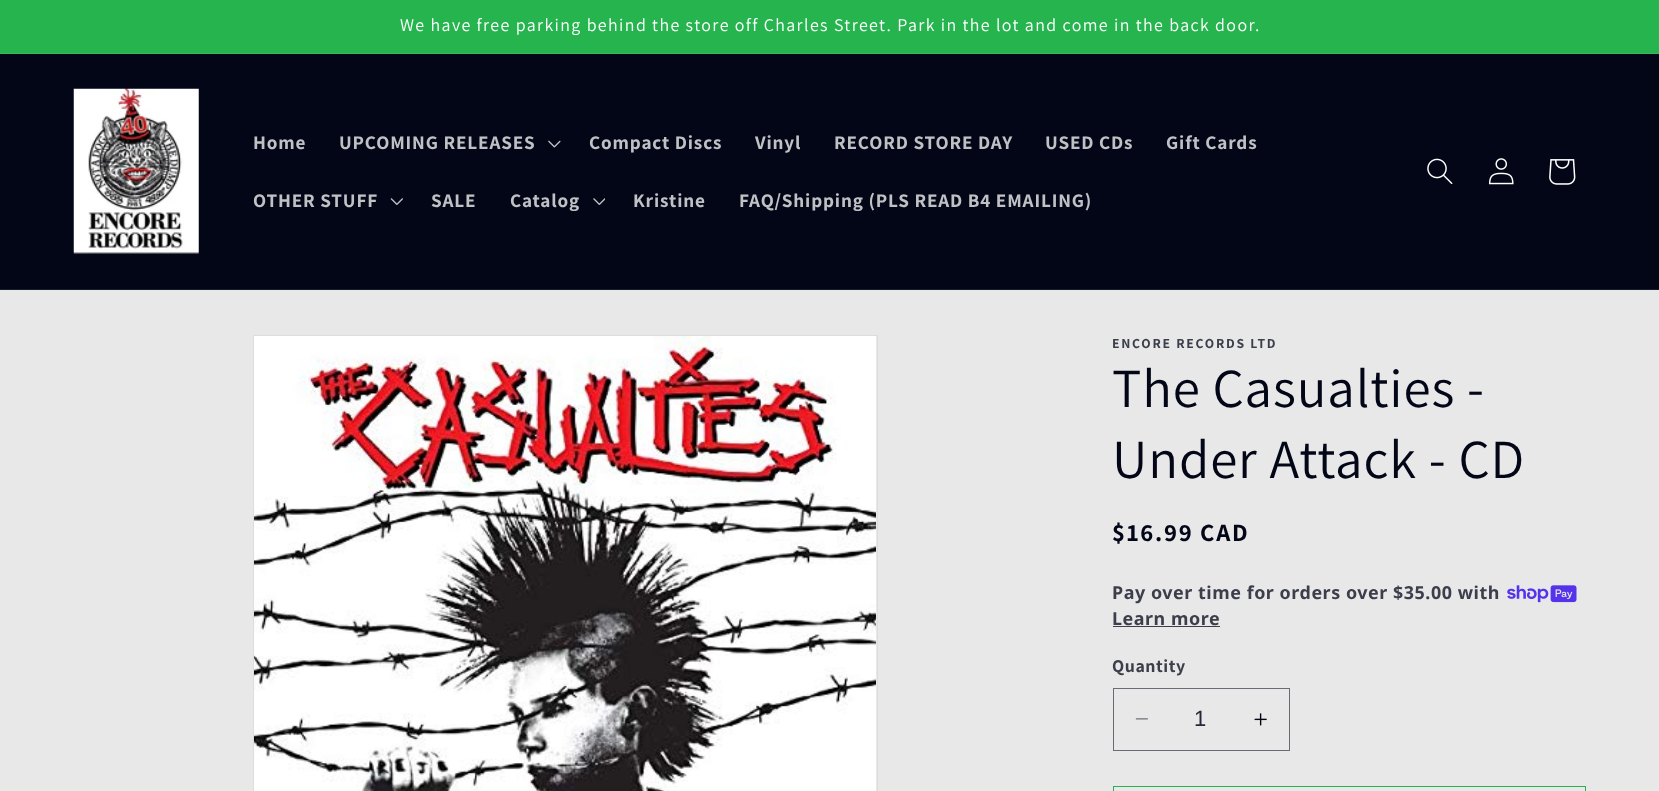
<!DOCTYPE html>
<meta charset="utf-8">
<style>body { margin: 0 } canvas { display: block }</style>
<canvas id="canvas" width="1659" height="791"></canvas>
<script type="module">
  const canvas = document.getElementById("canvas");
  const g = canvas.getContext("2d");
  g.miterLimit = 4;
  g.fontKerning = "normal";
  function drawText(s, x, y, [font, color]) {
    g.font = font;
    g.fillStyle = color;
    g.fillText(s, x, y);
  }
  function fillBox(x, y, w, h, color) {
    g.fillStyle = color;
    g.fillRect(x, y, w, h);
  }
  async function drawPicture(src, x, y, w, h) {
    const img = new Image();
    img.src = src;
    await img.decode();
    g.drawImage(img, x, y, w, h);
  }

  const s1 = ["17.9px Assistant", "#FFFFFF"];
  const s2 = ["bold 19.25px Assistant", "#C0C1C5"];
  const s3 = ["bold 13.75px Assistant", "#3C3F4B"];
  const s4 = ["55px Assistant", "#020616"];
  const s5 = ["bold 24.75px Assistant", "#020616"];
  const s6 = ["bold 17.9px Noto Sans", "#3C3F4B"];
  const s7 = ["bold 17.9px Assistant", "#3C3F4B"];
  const s8 = ["22px Liberation Sans", "#252836"];

  fillBox(0, 0, 1659, 791, "#E8E8E8");
  fillBox(0, 0, 1659, 53, "#26B44E");
  fillBox(0, 53, 1659, 1, "#37BA5C");
  g.letterSpacing = "1.38px";
  drawText("We have free parking behind the store off Charles Street. Park in the lot and come in the back door.", 400, 31, s1);
  fillBox(0, 54, 1659, 235, "#020616");
  fillBox(0, 289, 1659, 1, "#161A29");
  await drawPicture("pic1.png", 73, 88, 126, 166);
  g.letterSpacing = "0.85px";
  drawText("Home", 253, 149, s2);
  drawText("UPCOMING RELEASES", 339, 149, s2);
  await drawPicture("pic2.png", 548, 140, 13, 8);
  drawText("Compact Discs", 589, 149, s2);
  drawText("Vinyl", 755, 149, s2);
  drawText("RECORD STORE DAY", 834, 149, s2);
  drawText("USED CDs", 1045, 149, s2);
  drawText("Gift Cards", 1166, 149, s2);
  drawText("OTHER STUFF", 253, 207, s2);
  await drawPicture("pic3.png", 390, 198, 13, 7);
  drawText("SALE", 431, 207, s2);
  drawText("Catalog", 510, 207, s2);
  await drawPicture("pic4.png", 593, 198, 12, 7);
  drawText("Kristine", 633, 207, s2);
  drawText("FAQ/Shipping (PLS READ B4 EMAILING)", 739, 207, s2);
  await drawPicture("pic5.png", 1427, 158, 26, 27);
  await drawPicture("pic6.png", 1488, 158, 26, 27);
  await drawPicture("pic7.png", 1549, 159, 27, 26);
  g.strokeStyle = "#DDDDDE";
  g.strokeRect(253.5, 335.5, 624, 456);
  await drawPicture("pic8.png", 254, 336, 622, 455);
  g.letterSpacing = "1.75px";
  drawText("ENCORE RECORDS LTD", 1112, 348, s3);
  g.letterSpacing = "0.85px";
  drawText("The Casualties -", 1112, 407, s4);
  drawText("Under Attack - CD", 1112, 478, s4);
  g.letterSpacing = "1.75px";
  drawText("$16.99 CAD", 1112, 541, s5);
  g.letterSpacing = "0.55px";
  drawText("Pay over time for orders over $35.00 with", 1112, 599, s6);
  await drawPicture("pic9.png", 1507, 585, 70, 18);
  drawText("Learn more", 1112, 625, s6);
  fillBox(1113, 626, 107, 1, "#3C3F4B");
  drawText("Quantity", 1112, 672, s7);
  await drawPicture("pic10.png", 1135, 718, 13, 2);
  await drawPicture("pic11.png", 1254, 713, 13, 13);
  g.strokeStyle = "#696C74";
  g.strokeRect(1113.5, 688.5, 176, 62);
  g.letterSpacing = "0px";
  drawText("1", 1194, 726, s8);
  g.strokeStyle = "#26B44E";
  g.strokeRect(1113.5, 786.5, 472, 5);
</script>
